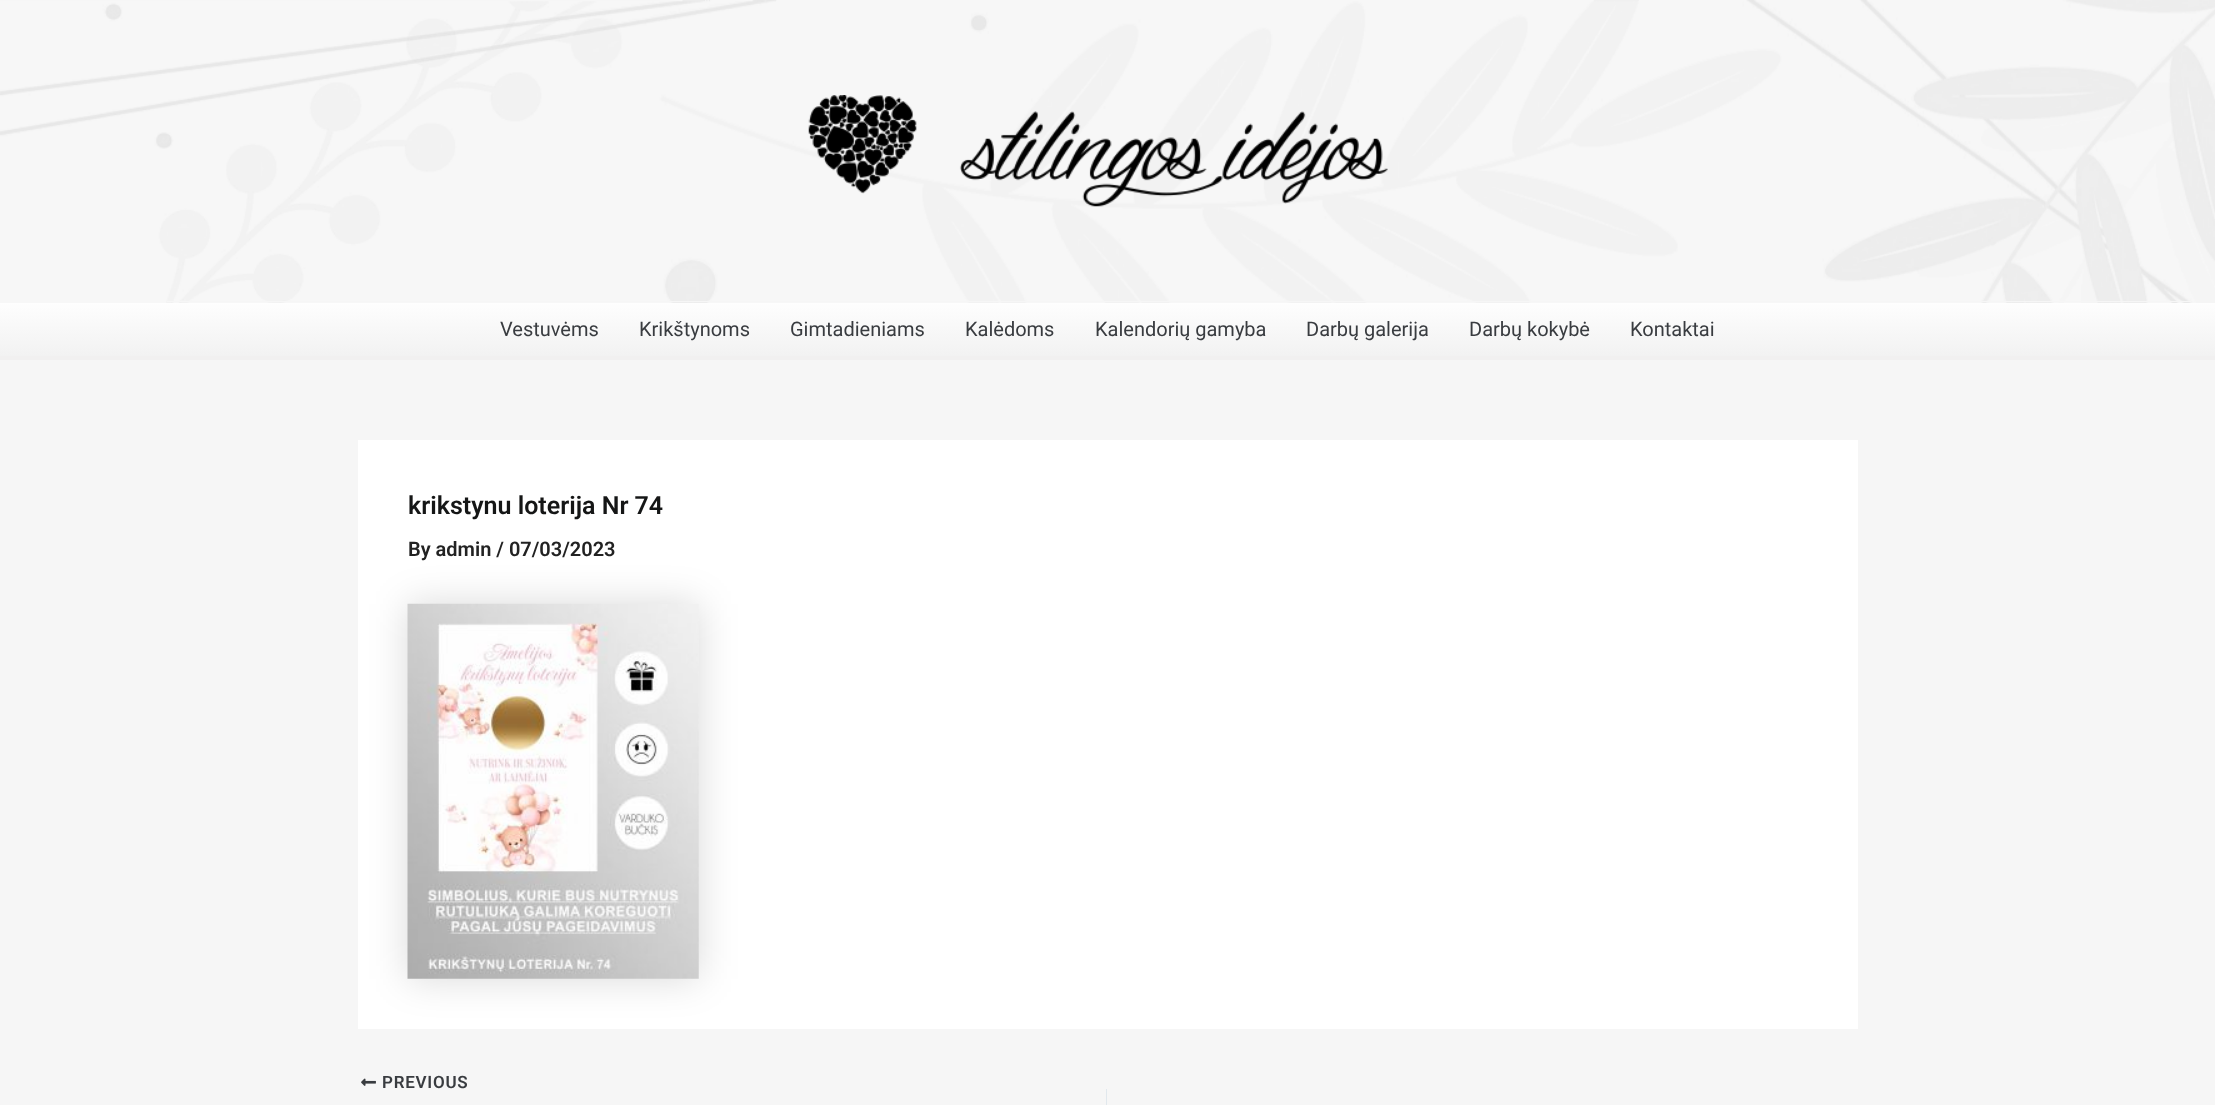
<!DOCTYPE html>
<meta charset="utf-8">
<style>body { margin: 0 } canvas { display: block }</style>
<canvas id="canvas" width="2215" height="1105"></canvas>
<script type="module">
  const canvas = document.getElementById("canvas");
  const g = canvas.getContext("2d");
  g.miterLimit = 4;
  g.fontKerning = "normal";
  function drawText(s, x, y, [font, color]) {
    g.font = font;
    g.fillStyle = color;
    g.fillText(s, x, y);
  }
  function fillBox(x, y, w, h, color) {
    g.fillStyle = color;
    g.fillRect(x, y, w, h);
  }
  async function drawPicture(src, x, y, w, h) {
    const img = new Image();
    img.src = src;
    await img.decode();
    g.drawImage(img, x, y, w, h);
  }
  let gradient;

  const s1 = ["20px Roboto", "#393C40"];
  const s2 = ["600 25px Roboto", "#151616"];
  const s3 = ["600 20px Roboto", "#222222"];
  const s4 = ["600 17px Roboto", "#393C40"];

  fillBox(0, 0, 2215, 1105, "#F6F6F6");
  await drawPicture("pic1.png", 0, 0, 2215, 303);
  fillBox(167, 301, 2024, 1, "#F6F6F6");
  await drawPicture("pic2.png", 808, 95, 580, 112);
  gradient = g.createLinearGradient(1108, 302, 1108, 356);
  gradient.addColorStop(0, "#FEFEFE");
  gradient.addColorStop(1, "#F2F2F2");
  g.fillStyle = gradient;
  g.fillRect(0, 303, 2215, 53);
  fillBox(0, 356, 2215, 4, "#F1F0F0");
  drawText("Vestuvėms", 500, 336, s1);
  drawText("Krikštynoms", 639, 336, s1);
  drawText("Gimtadieniams", 790, 336, s1);
  drawText("Kalėdoms", 965, 336, s1);
  drawText("Kalendorių gamyba", 1095, 336, s1);
  drawText("Darbų galerija", 1306, 336, s1);
  drawText("Darbų kokybė", 1469, 336, s1);
  drawText("Kontaktai", 1630, 336, s1);
  fillBox(358, 440, 1500, 589, "#FFFFFF");
  drawText("krikstynu loterija Nr 74", 408, 514, s2);
  drawText("By admin / 07/03/2023", 408, 556, s3);
  g.fillStyle = "rgba(0, 0, 0, 0.15)";
  g.filter = "blur(19px)";
  g.beginPath();
  g.rect(408, 604, 291, 375);
  g.fill();
  g.filter = "none";
  await drawPicture("pic3.png", 407, 603, 292, 376);
  await drawPicture("pic4.png", 361, 1078, 15, 8);
  g.letterSpacing = "0.75px";
  drawText("PREVIOUS", 382, 1088, s4);
  fillBox(1106, 1089, 1, 16, "#E1E8ED");
</script>
